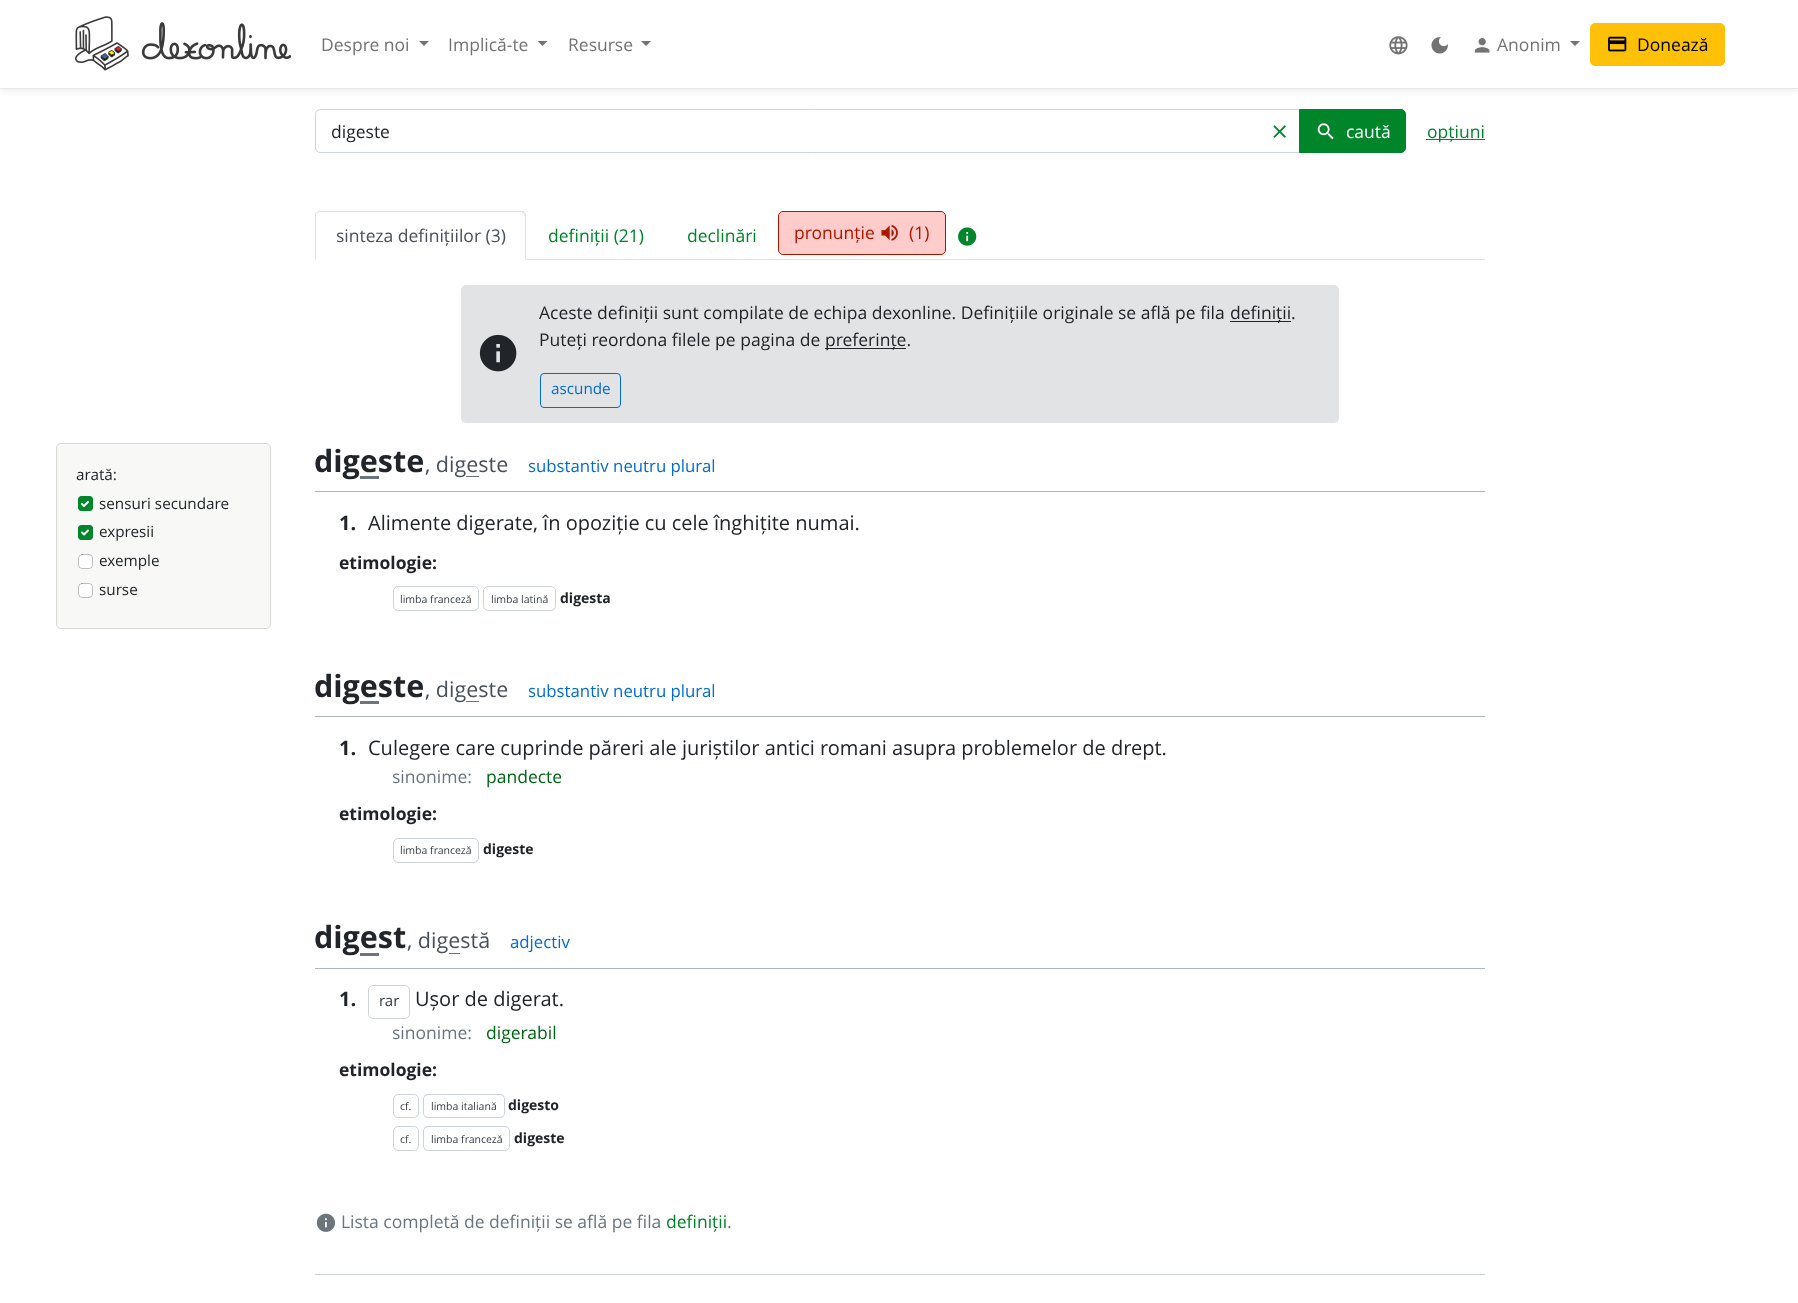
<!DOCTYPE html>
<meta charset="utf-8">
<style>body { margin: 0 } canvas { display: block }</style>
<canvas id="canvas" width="1798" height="1303"></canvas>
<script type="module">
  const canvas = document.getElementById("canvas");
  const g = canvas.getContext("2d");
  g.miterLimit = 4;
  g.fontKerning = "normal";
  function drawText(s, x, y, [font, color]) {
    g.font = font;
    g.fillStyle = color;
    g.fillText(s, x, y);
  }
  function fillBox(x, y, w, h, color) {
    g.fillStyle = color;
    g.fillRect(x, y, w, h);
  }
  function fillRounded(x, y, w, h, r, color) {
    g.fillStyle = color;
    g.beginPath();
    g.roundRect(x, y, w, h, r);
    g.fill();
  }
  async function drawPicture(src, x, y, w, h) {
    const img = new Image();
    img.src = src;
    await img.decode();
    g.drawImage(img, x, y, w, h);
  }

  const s1 = ["17.5px Open Sans", "#737373"];
  const s2 = ["17.5px Open Sans", "#000000"];
  const s3 = ["17.5px Open Sans", "#212529"];
  const s4 = ["17.5px Open Sans", "#FFFFFF"];
  const s5 = ["17.5px Open Sans", "#00852A"];
  const s6 = ["17.5px Open Sans", "#495057"];
  const s7 = ["17.5px Open Sans", "#AD1700"];
  const s8 = ["15.25px Open Sans", "#006CD1"];
  const s9 = ["bold 30.5px Open Sans", "#212529"];
  const s10 = ["21.5px Open Sans", "#495057"];
  const s11 = ["16.8px Open Sans", "#006CD1"];
  const s12 = ["15.25px Open Sans", "#212529"];
  const s13 = ["bold 20px Open Sans", "#212529"];
  const s14 = ["20px Open Sans", "#212529"];
  const s15 = ["bold 17.5px Open Sans", "#212529"];
  const s16 = ["10.5px Open Sans", "#343A40"];
  const s17 = ["bold 14px Open Sans", "#212529"];
  const s18 = ["17.5px Open Sans", "#6C757D"];
  const s19 = ["17.5px Open Sans", "#006615"];
  const s20 = ["15px Open Sans", "#343A40"];

  fillBox(0, 0, 1798, 1303, "#FFFFFF");
  g.fillStyle = "rgba(0, 0, 0, 0.1)";
  g.filter = "blur(5px)";
  g.beginPath();
  g.rect(0, 0, 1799, 89);
  g.fill();
  g.filter = "none";
  fillBox(0, 0, 1798, 88, "#FFFFFF");
  fillBox(0, 88, 1798, 1, "#E8E8E8");
  await drawPicture("pic1.png", 75, 16, 216, 55);
  drawText("Despre noi", 321, 51, s1);
  g.beginPath();
  g.moveTo(419, 41);
  g.lineTo(429, 41);
  g.lineTo(424, 46);
  g.closePath();
  g.fill();
  drawText("Implică-te", 448, 51, s1);
  g.beginPath();
  g.moveTo(537.5, 41);
  g.lineTo(547.5, 41);
  g.lineTo(542.5, 46);
  g.closePath();
  g.fill();
  drawText("Resurse", 568, 51, s1);
  g.beginPath();
  g.moveTo(641, 41);
  g.lineTo(651, 41);
  g.lineTo(646, 46);
  g.closePath();
  g.fill();
  await drawPicture("pic2.png", 1389, 36, 19, 19);
  await drawPicture("pic3.png", 1431, 37, 17, 17);
  await drawPicture("pic4.png", 1474, 38, 16, 15);
  drawText("Anonim", 1497, 51, s1);
  g.beginPath();
  g.moveTo(1570, 41);
  g.lineTo(1580, 41);
  g.lineTo(1575, 46);
  g.closePath();
  g.fill();
  g.fillStyle = "#FFC107";
  g.beginPath();
  g.roundRect(1590.5, 23.5, 134, 42, 4.5);
  g.fill();
  g.strokeStyle = "#FFC107";
  g.stroke();
  await drawPicture("pic5.png", 1608, 36, 19, 16);
  drawText("Donează", 1637, 51, s2);
  g.beginPath();
  g.roundRect(315.5, 109.5, 987, 43, [4.5, 0, 0, 4.5]);
  g.strokeStyle = "#CED4DA";
  g.stroke();
  drawText("digeste", 331, 138, s3);
  await drawPicture("pic6.png", 1273, 125, 13, 13);
  g.fillStyle = "#00852A";
  g.beginPath();
  g.roundRect(1299.5, 109.5, 106, 43, [0, 4.5, 4.5, 0]);
  g.fill();
  g.strokeStyle = "#00852A";
  g.stroke();
  await drawPicture("pic7.png", 1317, 123, 17, 17);
  drawText("caută", 1346, 138, s4);
  fillBox(1426, 139, 59, 1, "#00852A");
  drawText("opțiuni", 1427, 138, s5);
  fillBox(526, 259, 959, 1, "#DEE2E6");
  g.beginPath();
  g.moveTo(320, 212);
  g.lineTo(317, 213);
  g.lineTo(316, 213);
  g.lineTo(318, 211);
  g.lineTo(523, 211);
  g.lineTo(525, 213);
  g.lineTo(524, 214);
  g.bezierCurveTo(523, 213, 522, 212, 521, 212);
  g.closePath();
  g.fill();
  g.beginPath();
  g.moveTo(525, 213);
  g.bezierCurveTo(526, 213, 526, 215, 526, 216);
  g.lineTo(526, 260);
  g.lineTo(525, 259);
  g.lineTo(525, 216);
  g.lineTo(524, 214);
  g.closePath();
  g.fill();
  g.fillStyle = "#FFFFFF";
  g.beginPath();
  g.moveTo(526, 260);
  g.lineTo(525, 259);
  g.lineTo(316, 259);
  g.lineTo(315, 260);
  g.closePath();
  g.fill();
  g.fillStyle = "#DEE2E6";
  g.beginPath();
  g.moveTo(315, 260);
  g.lineTo(316, 259);
  g.lineTo(316, 216);
  g.bezierCurveTo(316, 215, 316, 214, 317, 213);
  g.lineTo(316, 213);
  g.bezierCurveTo(315, 213, 315, 215, 315, 216);
  g.closePath();
  g.fill();
  drawText("sinteza definițiilor (3)", 336, 242, s6);
  drawText("definiții (21)", 548, 242, s5);
  drawText("declinări", 687, 242, s5);
  g.fillStyle = "#FFCCCC";
  g.beginPath();
  g.roundRect(778.5, 211.5, 167, 43, 4.5);
  g.fill();
  g.strokeStyle = "#AD1700";
  g.stroke();
  drawText("pronunție", 794, 239, s7);
  await drawPicture("pic8.png", 881, 224, 17, 17);
  drawText("(1)", 909, 239, s7);
  await drawPicture("pic9.png", 958, 227, 19, 19);
  fillRounded(461, 285, 878, 138, 5, "#E2E3E5");
  await drawPicture("pic10.png", 479, 334, 38, 38);
  drawText("Aceste definiții sunt compilate de echipa dexonline. Definițiile originale se află pe fila", 539, 319, s3);
  fillBox(1230, 321, 61, 1, "#212529");
  drawText("definiții.", 1230, 319, s3);
  drawText("Puteți reordona filele pe pagina de", 539, 346, s3);
  fillBox(825, 348, 81, 1, "#212529");
  drawText("preferințe.", 825, 346, s3);
  g.beginPath();
  g.roundRect(540.5, 373.5, 80, 34, 3.5);
  g.strokeStyle = "#006CD1";
  g.stroke();
  drawText("ascunde", 551, 394, s8);
  fillBox(315, 491, 1170, 1, "#ADB5BD");
  drawText("digeste", 314, 472, s9);
  drawText(", digeste", 425, 472, s10);
  fillBox(466, 476, 13, 1, "#6C757D");
  drawText("substantiv neutru plural", 528, 472, s11);
  fillBox(360, 476, 19, 3, "#6C757D");
  fillRounded(56, 443, 215, 186, 5, "#F8F9F6");
  g.beginPath();
  g.roundRect(56.5, 443.5, 214, 185, 4.5);
  g.strokeStyle = "rgba(0, 0, 0, 0.12)";
  g.stroke();
  drawText("arată:", 76, 480, s12);
  fillRounded(78, 496, 15, 15, 4, "#00852A");
  g.beginPath();
  g.moveTo(82, 504);
  g.lineTo(84, 506);
  g.lineTo(88, 502);
  g.strokeStyle = "#FFFFFF";
  g.lineWidth = 1.9;
  g.lineCap = "round";
  g.lineJoin = "round";
  g.stroke();
  g.beginPath();
  g.roundRect(78.5, 496.5, 14, 14, 3.5);
  g.strokeStyle = "#00852A";
  g.lineWidth = 1;
  g.lineJoin = "miter";
  g.stroke();
  drawText("sensuri secundare", 99, 509, s12);
  fillRounded(78, 525, 15, 15, 4, "#00852A");
  g.beginPath();
  g.moveTo(82, 532.5);
  g.lineTo(84, 534.5);
  g.lineTo(88, 530.5);
  g.strokeStyle = "#FFFFFF";
  g.lineWidth = 1.9;
  g.lineJoin = "round";
  g.stroke();
  g.beginPath();
  g.roundRect(78.5, 525.5, 14, 14, 3.5);
  g.strokeStyle = "#00852A";
  g.lineWidth = 1;
  g.lineJoin = "miter";
  g.stroke();
  drawText("expresii", 99, 537, s12);
  fillRounded(78, 554, 15, 15, 4, "#FFFFFF");
  g.beginPath();
  g.roundRect(78.5, 554.5, 14, 14, 3.5);
  g.strokeStyle = "rgba(0, 0, 0, 0.25)";
  g.stroke();
  drawText("exemple", 99, 566, s12);
  fillRounded(78, 583, 15, 15, 4, "#FFFFFF");
  g.beginPath();
  g.roundRect(78.5, 583.5, 14, 14, 3.5);
  g.stroke();
  drawText("surse", 99, 595, s12);
  drawText("1.", 339, 530, s13);
  drawText("Alimente digerate, în opoziție cu cele înghițite numai.", 368, 530, s14);
  drawText("etimologie:", 339, 569, s15);
  g.beginPath();
  g.roundRect(393.5, 586.5, 85, 24, 4.5);
  g.strokeStyle = "#CED4DA";
  g.stroke();
  drawText("limba franceză", 400, 603, s16);
  g.beginPath();
  g.roundRect(483.5, 586.5, 72, 24, 4.5);
  g.stroke();
  drawText("limba latină", 491, 603, s16);
  drawText("digesta", 560, 603, s17);
  fillBox(315, 716, 1170, 1, "#ADB5BD");
  drawText("digeste", 314, 697, s9);
  drawText(", digeste", 425, 697, s10);
  fillBox(466, 701, 13, 1, "#6C757D");
  drawText("substantiv neutru plural", 528, 697, s11);
  fillBox(360, 701, 19, 3, "#6C757D");
  drawText("1.", 339, 755, s13);
  drawText("Culegere care cuprinde păreri ale juriștilor antici romani asupra problemelor de drept.", 368, 755, s14);
  drawText("sinonime:", 392, 783, s18);
  drawText("pandecte", 486, 783, s19);
  drawText("etimologie:", 339, 820, s15);
  g.beginPath();
  g.roundRect(393.5, 838.5, 85, 24, 4.5);
  g.stroke();
  drawText("limba franceză", 400, 854, s16);
  drawText("digeste", 483, 854, s17);
  fillBox(315, 968, 1170, 1, "#ADB5BD");
  drawText("digest", 314, 948, s9);
  drawText(", digestă", 407, 948, s10);
  fillBox(449, 953, 11, 1, "#6C757D");
  drawText("adjectiv", 510, 948, s11);
  fillBox(360, 953, 19, 3, "#6C757D");
  drawText("1.", 339, 1006, s13);
  g.beginPath();
  g.roundRect(368.5, 985.5, 41, 33, 4.5);
  g.stroke();
  drawText("rar", 379, 1006, s20);
  drawText("Ușor de digerat.", 415, 1006, s14);
  drawText("sinonime:", 392, 1039, s18);
  drawText("digerabil", 486, 1039, s19);
  drawText("etimologie:", 339, 1076, s15);
  g.beginPath();
  g.roundRect(393.5, 1094.5, 25, 23, 4.5);
  g.stroke();
  drawText("cf.", 400, 1110, s16);
  g.beginPath();
  g.roundRect(423.5, 1094.5, 81, 23, 4.5);
  g.stroke();
  drawText("limba italiană", 431, 1110, s16);
  drawText("digesto", 508, 1110, s17);
  g.beginPath();
  g.roundRect(393.5, 1126.5, 25, 24, 4.5);
  g.stroke();
  drawText("cf.", 400, 1143, s16);
  g.beginPath();
  g.roundRect(423.5, 1126.5, 86, 24, 4.5);
  g.stroke();
  drawText("limba franceză", 431, 1143, s16);
  drawText("digeste", 514, 1143, s17);
  await drawPicture("pic11.png", 316, 1213, 19, 19);
  drawText("Lista completă de definiții se află pe fila", 341, 1228, s18);
  drawText("definiții", 666, 1228, s5);
  drawText(".", 727, 1228, s18);
  fillBox(315, 1274, 1170, 1, "#CED4DA");
</script>
